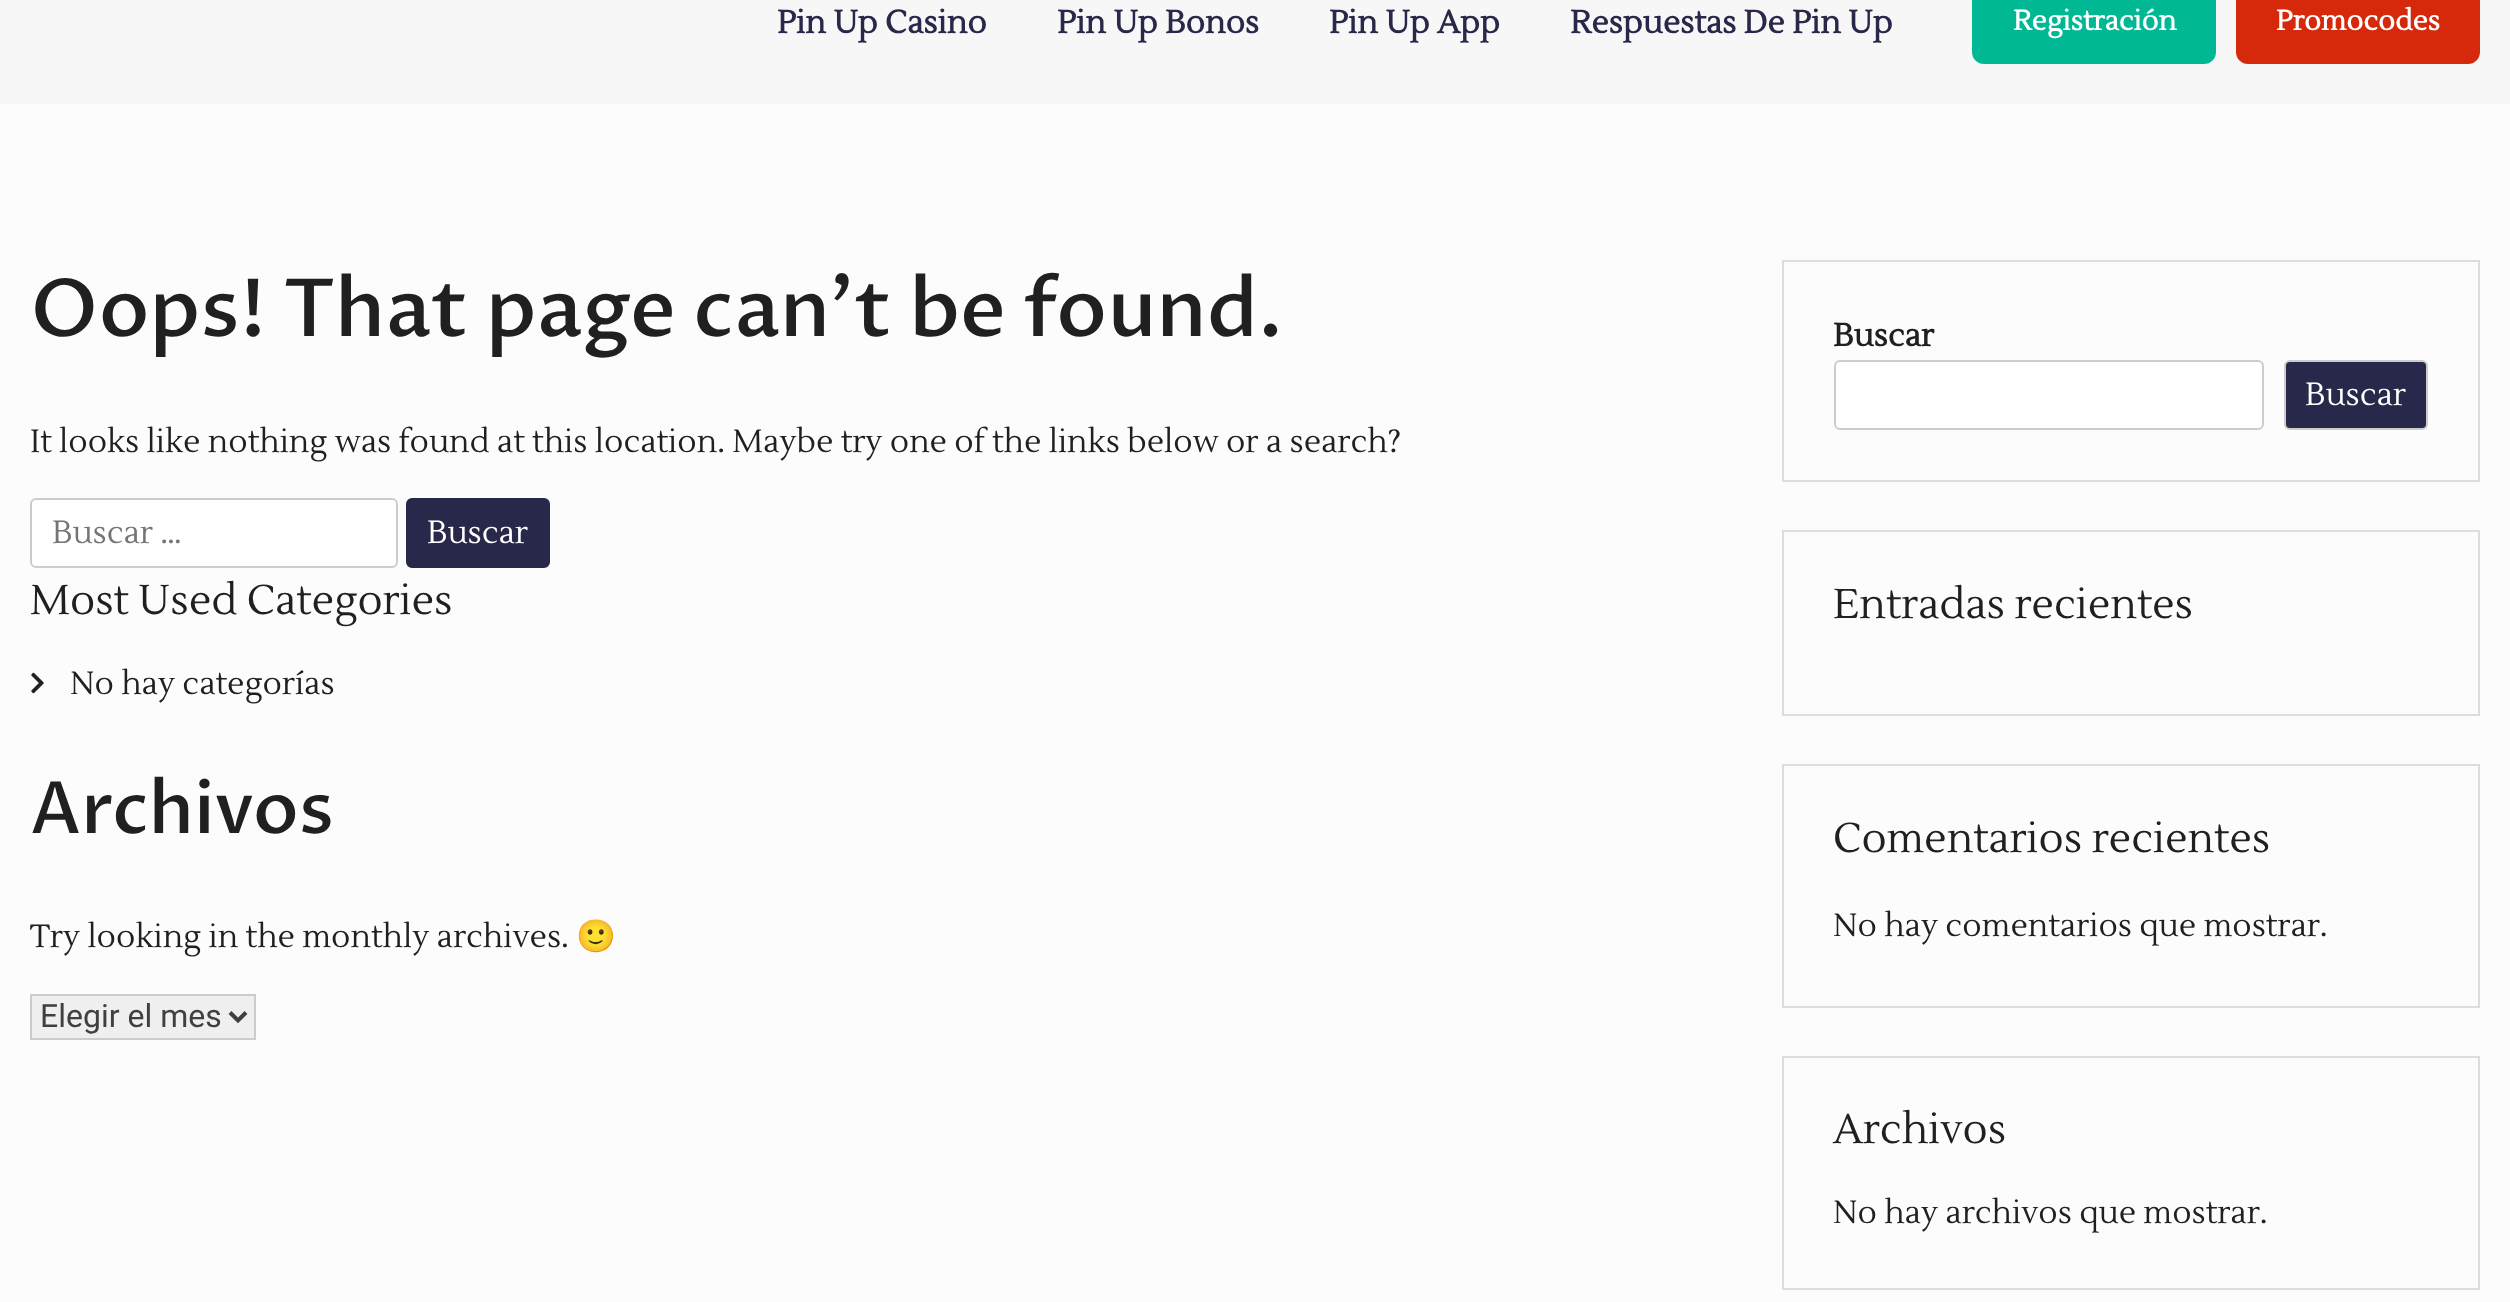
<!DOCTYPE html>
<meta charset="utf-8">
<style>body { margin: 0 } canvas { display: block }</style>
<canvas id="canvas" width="2510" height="1302"></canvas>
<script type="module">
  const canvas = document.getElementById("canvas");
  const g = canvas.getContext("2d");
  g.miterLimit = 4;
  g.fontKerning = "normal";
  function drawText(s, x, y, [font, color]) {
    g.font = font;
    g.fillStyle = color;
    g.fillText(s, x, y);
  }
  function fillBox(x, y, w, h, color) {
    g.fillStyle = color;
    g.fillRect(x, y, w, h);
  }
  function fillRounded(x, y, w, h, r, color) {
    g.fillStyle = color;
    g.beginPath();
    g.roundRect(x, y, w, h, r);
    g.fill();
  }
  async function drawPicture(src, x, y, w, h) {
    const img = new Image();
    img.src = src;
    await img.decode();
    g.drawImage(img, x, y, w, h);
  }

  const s1 = ["bold 32px Lustria", "#28284A"];
  const s2 = ["bold 28px Lustria", "#FFFFFF"];
  const s3 = ["500 80px Proza Libre", "#202020"];
  const s4 = ["32px Lustria", "#202020"];
  const s5 = ["32px Lustria", "#757575"];
  const s6 = ["32px Lustria", "#FFFFFF"];
  const s7 = ["41.6px Lustria", "#202020"];
  const s8 = ["500 72px Proza Libre", "#202020"];
  const s9 = ["32px Noto Color Emoji", "#202020"];
  const s10 = ["32px Roboto", "#404040"];
  const s11 = ["bold 32px Lustria", "#202020"];

  fillBox(0, 0, 2510, 1302, "#FCFCFC");
  fillBox(0, 0, 2510, 104, "#F7F7F7");
  drawText("Pin Up Casino", 777, 33, s1);
  drawText("Pin Up Bonos", 1057, 33, s1);
  drawText("Pin Up App", 1329, 33, s1);
  drawText("Respuestas De Pin Up", 1570, 33, s1);
  fillRounded(1972, -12, 244, 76, 12, "#00B894");
  drawText("Registración", 2013, 30, s2);
  fillRounded(2236, -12, 244, 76, 12, "#D6280B");
  drawText("Promocodes", 2276, 30, s2);
  drawText("Oops! That page can’t be found.", 30, 336, s3);
  drawText("It looks like nothing was found at this location. Maybe try one of the links below or a search?", 30, 452, s4);
  g.fillStyle = "#FFFFFF";
  g.beginPath();
  g.roundRect(31, 499, 366, 68, 5);
  g.fill();
  g.strokeStyle = "#CCCCCC";
  g.lineWidth = 2;
  g.stroke();
  drawText("Buscar …", 52, 543, s5);
  g.fillStyle = "#28284A";
  g.beginPath();
  g.roundRect(407, 499, 142, 68, 5);
  g.fill();
  g.strokeStyle = "#28284A";
  g.stroke();
  drawText("Buscar", 427, 543, s6);
  drawText("Most Used Categories", 30, 614, s7);
  await drawPicture("pic1.png", 31, 672, 13, 22);
  drawText("No hay categorías", 70, 694, s4);
  drawText("Archivos", 30, 833, s8);
  drawText("Try looking in the monthly archives.", 30, 947, s4);
  drawText("🙂", 576, 947, s9);
  g.fillStyle = "#EFEFEF";
  g.beginPath();
  g.rect(31, 995, 224, 44);
  g.fill();
  g.strokeStyle = "#CCCCCC";
  g.stroke();
  g.beginPath();
  g.moveTo(230, 1012.5);
  g.lineTo(238, 1020.5);
  g.lineTo(246, 1012.5);
  g.strokeStyle = "#404040";
  g.lineWidth = 4;
  g.stroke();
  drawText("Elegir el mes", 40, 1027, s10);
  g.strokeStyle = "#DDDDDD";
  g.lineWidth = 2;
  g.strokeRect(1783, 261, 696, 220);
  drawText("Buscar", 1833, 346, s11);
  g.fillStyle = "#FFFFFF";
  g.beginPath();
  g.roundRect(1835, 361, 428, 68, 5);
  g.fill();
  g.strokeStyle = "#CCCCCC";
  g.stroke();
  g.fillStyle = "#28284A";
  g.beginPath();
  g.roundRect(2285, 361, 142, 68, 5);
  g.fill();
  g.stroke();
  drawText("Buscar", 2305, 405, s6);
  g.strokeStyle = "#DDDDDD";
  g.strokeRect(1783, 531, 696, 184);
  drawText("Entradas recientes", 1833, 618, s7);
  g.strokeRect(1783, 765, 696, 242);
  drawText("Comentarios recientes", 1833, 852, s7);
  drawText("No hay comentarios que mostrar.", 1833, 936, s4);
  g.strokeRect(1783, 1057, 696, 232);
  drawText("Archivos", 1833, 1143, s7);
  drawText("No hay archivos que mostrar.", 1833, 1223, s4);
</script>
